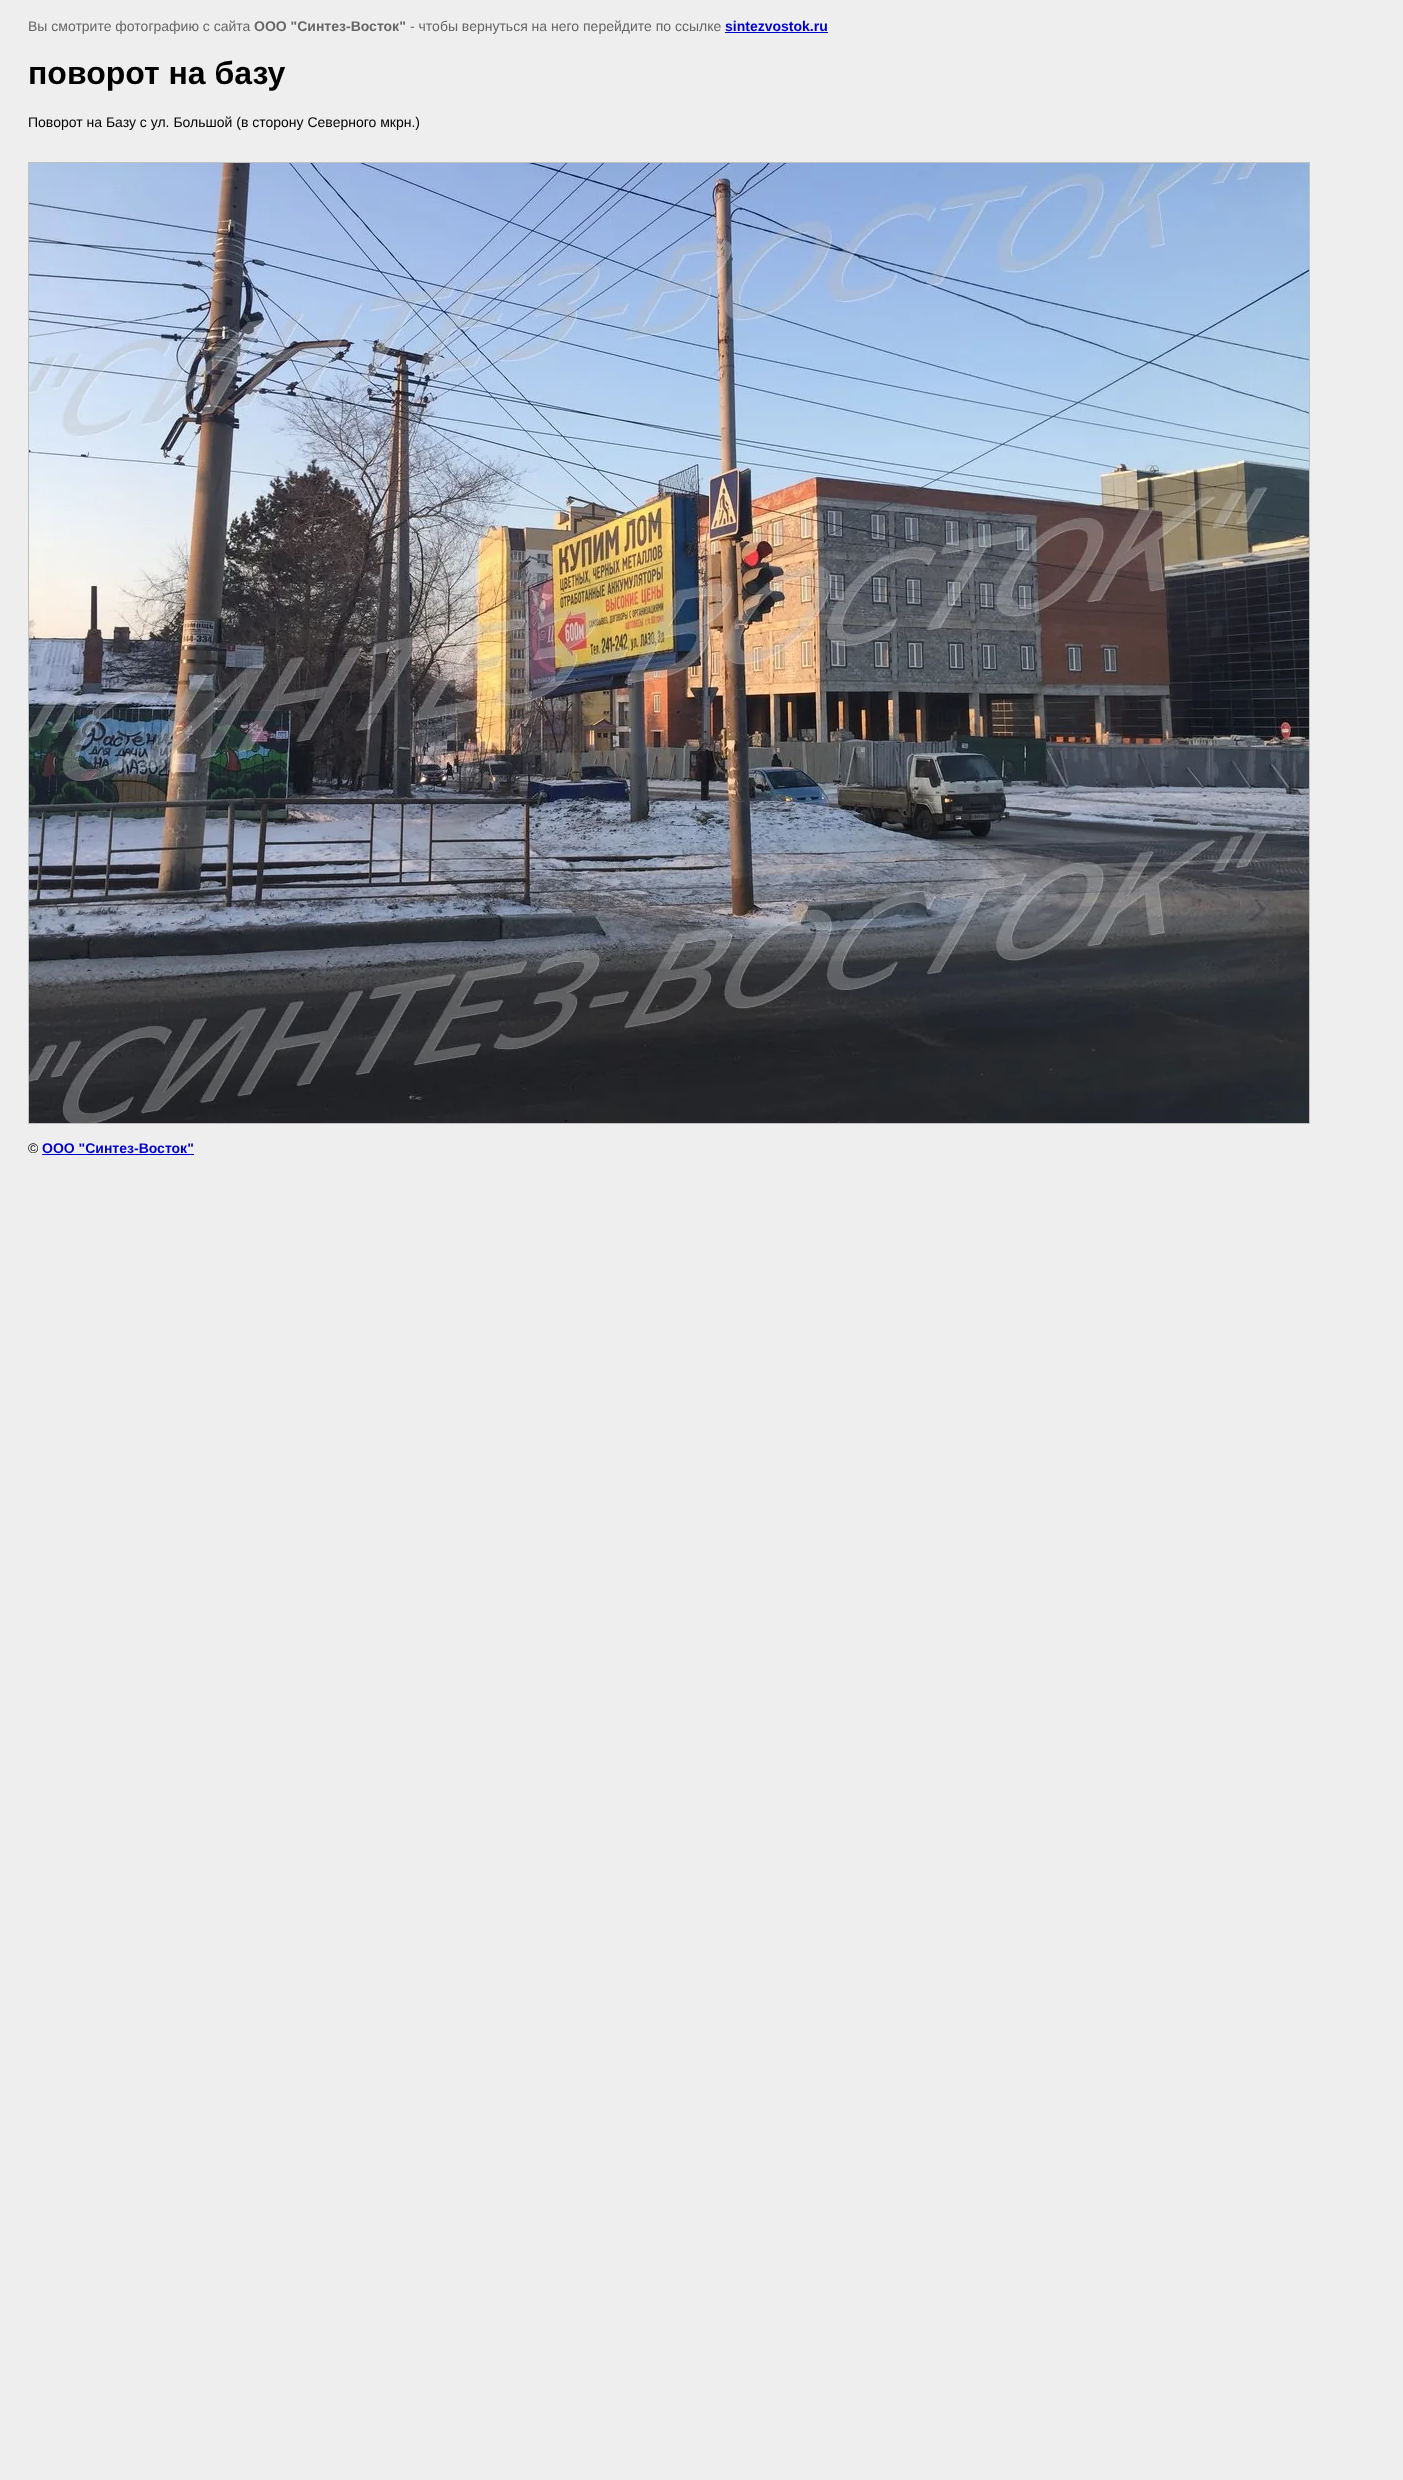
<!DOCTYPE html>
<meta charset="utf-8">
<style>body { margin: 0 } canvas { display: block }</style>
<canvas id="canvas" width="1403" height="2480"></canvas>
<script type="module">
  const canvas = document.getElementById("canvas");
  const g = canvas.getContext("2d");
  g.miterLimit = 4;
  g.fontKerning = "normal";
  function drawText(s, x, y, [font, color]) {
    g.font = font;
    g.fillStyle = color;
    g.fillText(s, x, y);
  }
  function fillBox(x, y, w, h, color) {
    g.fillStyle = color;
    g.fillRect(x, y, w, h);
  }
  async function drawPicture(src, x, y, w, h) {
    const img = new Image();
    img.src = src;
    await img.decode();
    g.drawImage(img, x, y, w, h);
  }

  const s1 = ["14px Liberation Sans", "#666666"];
  const s2 = ["bold 14px Liberation Sans", "#666666"];
  const s3 = ["bold 14px Liberation Sans", "#0000CC"];
  const s4 = ["bold 32px Liberation Sans", "#000000"];
  const s5 = ["14px Liberation Sans", "#000000"];

  fillBox(0, 0, 1403, 2480, "#EEEEEE");
  drawText("Вы смотрите фотографию с сайта", 28, 31, s1);
  drawText("ООО \"Синтез-Восток\"", 254, 31, s2);
  drawText("- чтобы вернуться на него перейдите по ссылке", 410, 31, s1);
  drawText("sintezvostok.ru", 725, 31, s3);
  fillBox(725, 32, 103, 1, "#0000CC");
  drawText("поворот на базу", 28, 84, s4);
  drawText("Поворот на Базу с ул. Большой (в сторону Северного мкрн.)", 28, 127, s5);
  g.strokeStyle = "#C0C0C0";
  g.strokeRect(28.5, 162.5, 1281, 961);
  await drawPicture("pic1.png", 29, 163, 1280, 960);
  drawText("©", 28, 1153, s5);
  drawText("ООО \"Синтез-Восток\"", 42, 1153, s3);
  fillBox(42, 1154, 152, 1, "#0000CC");
</script>
